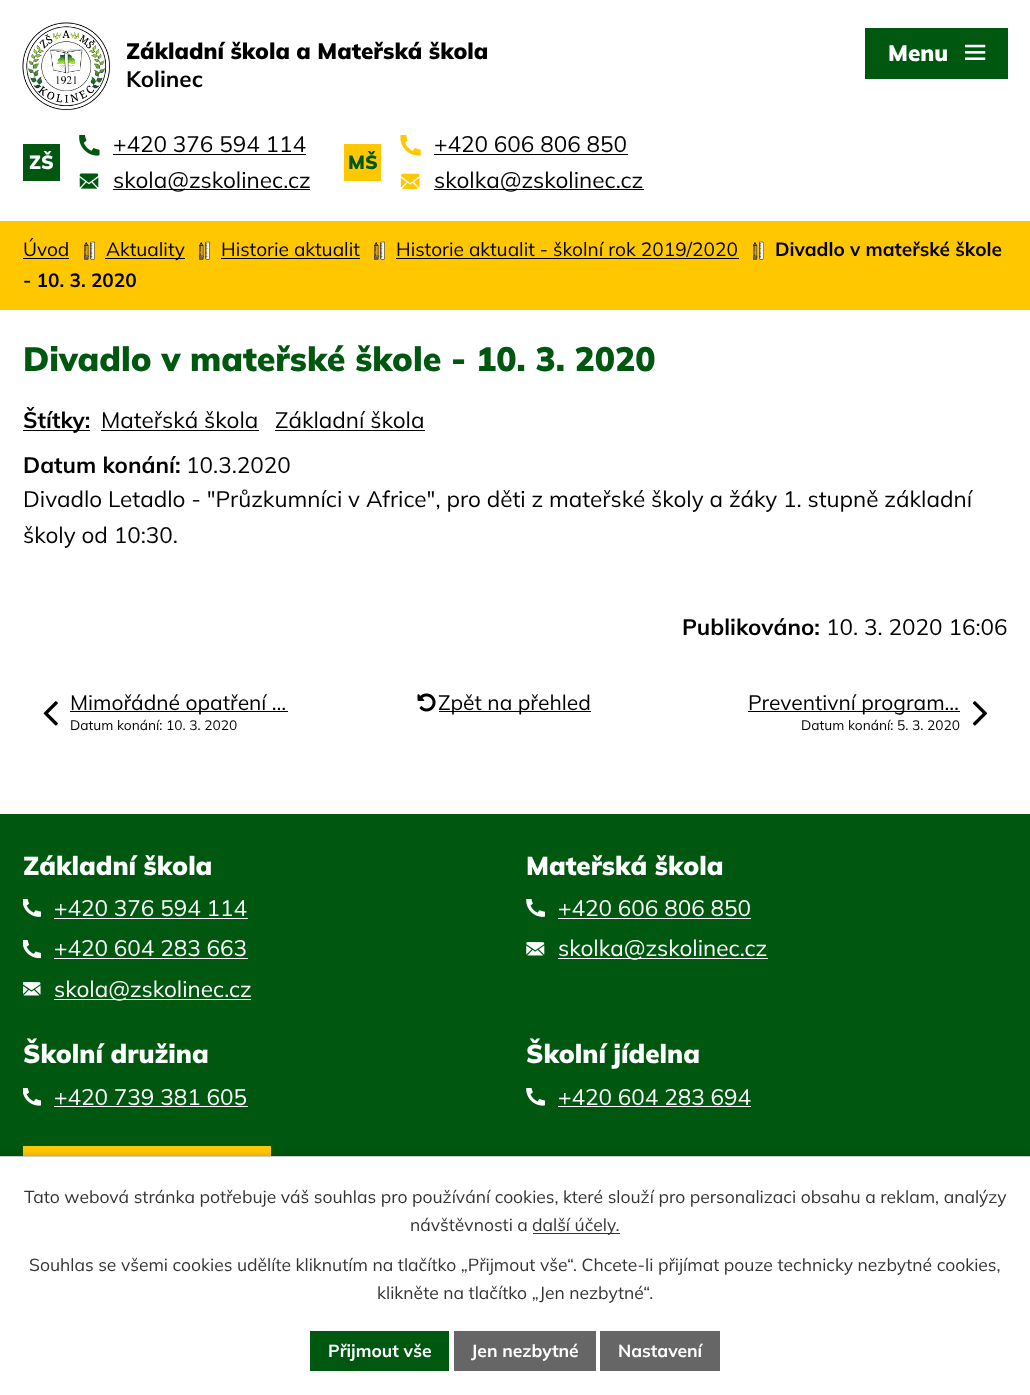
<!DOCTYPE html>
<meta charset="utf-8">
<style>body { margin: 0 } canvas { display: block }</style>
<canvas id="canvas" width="1030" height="1395"></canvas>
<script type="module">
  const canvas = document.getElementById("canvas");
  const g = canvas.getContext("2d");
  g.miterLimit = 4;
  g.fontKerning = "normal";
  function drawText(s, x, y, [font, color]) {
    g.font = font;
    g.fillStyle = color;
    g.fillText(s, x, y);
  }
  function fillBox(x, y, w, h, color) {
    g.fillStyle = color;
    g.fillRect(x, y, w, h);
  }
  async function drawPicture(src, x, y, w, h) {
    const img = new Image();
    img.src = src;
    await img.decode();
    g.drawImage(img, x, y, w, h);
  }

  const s1 = ["900 22.5px Mulish", "#000000"];
  const s2 = ["bold 22.5px Mulish", "#000000"];
  const s3 = ["900 19.1px Mulish", "#FFFFFF"];
  const s4 = ["22.5px Mulish", "#000000"];
  const s5 = ["900 19.1px Mulish", "#005710"];
  const s6 = ["900 22.5px Mulish", "#FFFFFF"];
  const s7 = ["19.1px Mulish", "#000000"];
  const s8 = ["bold 19.1px Mulish", "#000000"];
  const s9 = ["900 33.75px Mulish", "#005710"];
  const s10 = ["21px Mulish", "#000000"];
  const s11 = ["13.75px Mulish", "#000000"];
  const s12 = ["900 26px Mulish", "#FFFFFF"];
  const s13 = ["22.5px Mulish", "#FFFFFF"];
  const s14 = ["17.5px Mulish", "#333333"];
  const s15 = ["bold 17.5px Mulish", "#FFFFFF"];

  fillBox(0, 0, 1030, 1395, "#FFFFFF");
  await drawPicture("pic1.png", 22, 22, 88, 88);
  drawText("Základní škola a Mateřská škola", 126, 59, s1);
  drawText("Kolinec", 126, 87, s2);
  fillBox(23, 144, 37, 37, "#005710");
  drawText("ZŠ", 29, 169, s3);
  await drawPicture("pic2.png", 79, 135, 21, 21);
  drawText("+420 376 594 114", 113, 152, s4);
  fillBox(113, 154, 193, 1, "#000000");
  await drawPicture("pic3.png", 79, 173, 20, 16);
  fillBox(113, 189, 197, 1, "#000000");
  drawText("skola@zskolinec.cz", 113, 188, s4);
  fillBox(344, 144, 37, 37, "#FFC700");
  drawText("MŠ", 348, 169, s5);
  await drawPicture("pic4.png", 400, 135, 21, 21);
  drawText("+420 606 806 850", 434, 152, s4);
  fillBox(434, 154, 194, 1, "#000000");
  await drawPicture("pic5.png", 400, 173, 20, 16);
  fillBox(434, 189, 210, 1, "#000000");
  drawText("skolka@zskolinec.cz", 434, 188, s4);
  fillBox(865, 28, 143, 51, "#005710");
  drawText("Menu", 888, 61, s6);
  await drawPicture("pic6.png", 965, 44, 21, 16);
  fillBox(0, 221, 1030, 89, "#FFC700");
  drawText("Úvod", 23, 256, s7);
  fillBox(23, 258, 46, 1, "#000000");
  await drawPicture("pic7.png", 84, 241, 11, 19);
  fillBox(105, 258, 80, 1, "#000000");
  drawText("Aktuality", 106, 256, s7);
  await drawPicture("pic7.png", 199, 241, 11, 19);
  drawText("Historie aktualit", 221, 256, s7);
  fillBox(221, 258, 139, 1, "#000000");
  await drawPicture("pic7.png", 374, 241, 11, 19);
  drawText("Historie aktualit - školní rok 2019/2020", 396, 256, s7);
  fillBox(396, 258, 343, 1, "#000000");
  await drawPicture("pic8.png", 753, 241, 11, 19);
  drawText("Divadlo v mateřské škole", 775, 256, s8);
  drawText("- 10. 3. 2020", 23, 287, s8);
  drawText("Divadlo v mateřské škole - 10. 3. 2020", 23, 371, s9);
  fillBox(23, 430, 67, 1, "#000000");
  drawText("Štítky:", 23, 428, s2);
  drawText("Mateřská škola", 101, 428, s4);
  fillBox(101, 430, 158, 1, "#000000");
  drawText("Základní škola", 275, 428, s4);
  fillBox(275, 430, 150, 1, "#000000");
  drawText("Datum konání:", 23, 473, s2);
  drawText("10.3.2020", 186, 473, s4);
  drawText("Divadlo Letadlo - \"Průzkumníci v Africe\", pro děti z mateřské školy a žáky 1. stupně základní", 23, 507, s4);
  drawText("školy od 10:30.", 23, 543, s4);
  drawText("Publikováno:", 682, 635, s2);
  drawText("10. 3. 2020 16:06", 826, 635, s4);
  await drawPicture("pic9.png", 43, 701, 15, 25);
  fillBox(70, 711, 218, 1, "#000000");
  drawText("Mimořádné opatření …", 70, 710, s10);
  drawText("Datum konání: 10. 3. 2020", 70, 730, s11);
  await drawPicture("pic10.png", 417, 693, 19, 19);
  fillBox(439, 711, 152, 1, "#000000");
  drawText("Zpět na přehled", 438, 710, s10);
  fillBox(748, 711, 212, 1, "#000000");
  drawText("Preventivní program…", 748, 710, s10);
  drawText("Datum konání: 5. 3. 2020", 801, 730, s11);
  await drawPicture("pic11.png", 972, 701, 16, 25);
  fillBox(0, 814, 1030, 342, "#005710");
  drawText("Základní škola", 23, 875, s12);
  await drawPicture("pic12.png", 23, 899, 18, 18);
  drawText("+420 376 594 114", 54, 916, s13);
  fillBox(54, 918, 194, 1, "#FFFFFF");
  await drawPicture("pic13.png", 23, 940, 18, 19);
  drawText("+420 604 283 663", 54, 956, s13);
  fillBox(54, 958, 194, 1, "#FFFFFF");
  await drawPicture("pic14.png", 23, 982, 18, 14);
  fillBox(54, 999, 197, 1, "#FFFFFF");
  drawText("skola@zskolinec.cz", 54, 997, s13);
  drawText("Mateřská škola", 526, 875, s12);
  await drawPicture("pic15.png", 526, 899, 19, 18);
  drawText("+420 606 806 850", 558, 916, s13);
  fillBox(558, 918, 193, 1, "#FFFFFF");
  await drawPicture("pic16.png", 526, 942, 19, 14);
  fillBox(558, 958, 210, 1, "#FFFFFF");
  drawText("skolka@zskolinec.cz", 558, 956, s13);
  drawText("Školní družina", 23, 1063, s12);
  await drawPicture("pic17.png", 23, 1088, 18, 18);
  drawText("+420 739 381 605", 54, 1105, s13);
  fillBox(54, 1106, 194, 1, "#FFFFFF");
  drawText("Školní jídelna", 526, 1063, s12);
  await drawPicture("pic18.png", 526, 1088, 19, 18);
  drawText("+420 604 283 694", 558, 1105, s13);
  fillBox(558, 1106, 193, 1, "#FFFFFF");
  fillBox(23, 1146, 248, 10, "#FFC700");
  g.fillStyle = "rgba(0, 0, 0, 0.2)";
  g.filter = "blur(3px)";
  g.beginPath();
  g.rect(0, 1156, 1030, 239);
  g.fill();
  g.filter = "none";
  fillBox(0, 1157, 1030, 238, "#FFFFFF");
  fillBox(0, 1156, 1030, 1, "#CCCCCC");
  drawText("Tato webová stránka potřebuje váš souhlas pro používání cookies, které slouží pro personalizaci obsahu a reklam, analýzy", 24, 1203, s14);
  drawText("návštěvnosti a", 410, 1231, s14);
  fillBox(533, 1233, 87, 1, "#333333");
  drawText("další účely.", 532, 1231, s14);
  drawText("Souhlas se všemi cookies udělíte kliknutím na tlačítko „Přijmout vše“. Chcete-li přijímat pouze technicky nezbytné cookies,", 29, 1271, s14);
  drawText("klikněte na tlačítko „Jen nezbytné“.", 377, 1299, s14);
  fillBox(310, 1331, 139, 40, "#005710");
  drawText("Přijmout vše", 328, 1357, s15);
  fillBox(454, 1331, 142, 40, "#666666");
  drawText("Jen nezbytné", 471, 1357, s15);
  fillBox(600, 1331, 120, 40, "#666666");
  drawText("Nastavení", 618, 1357, s15);
</script>
